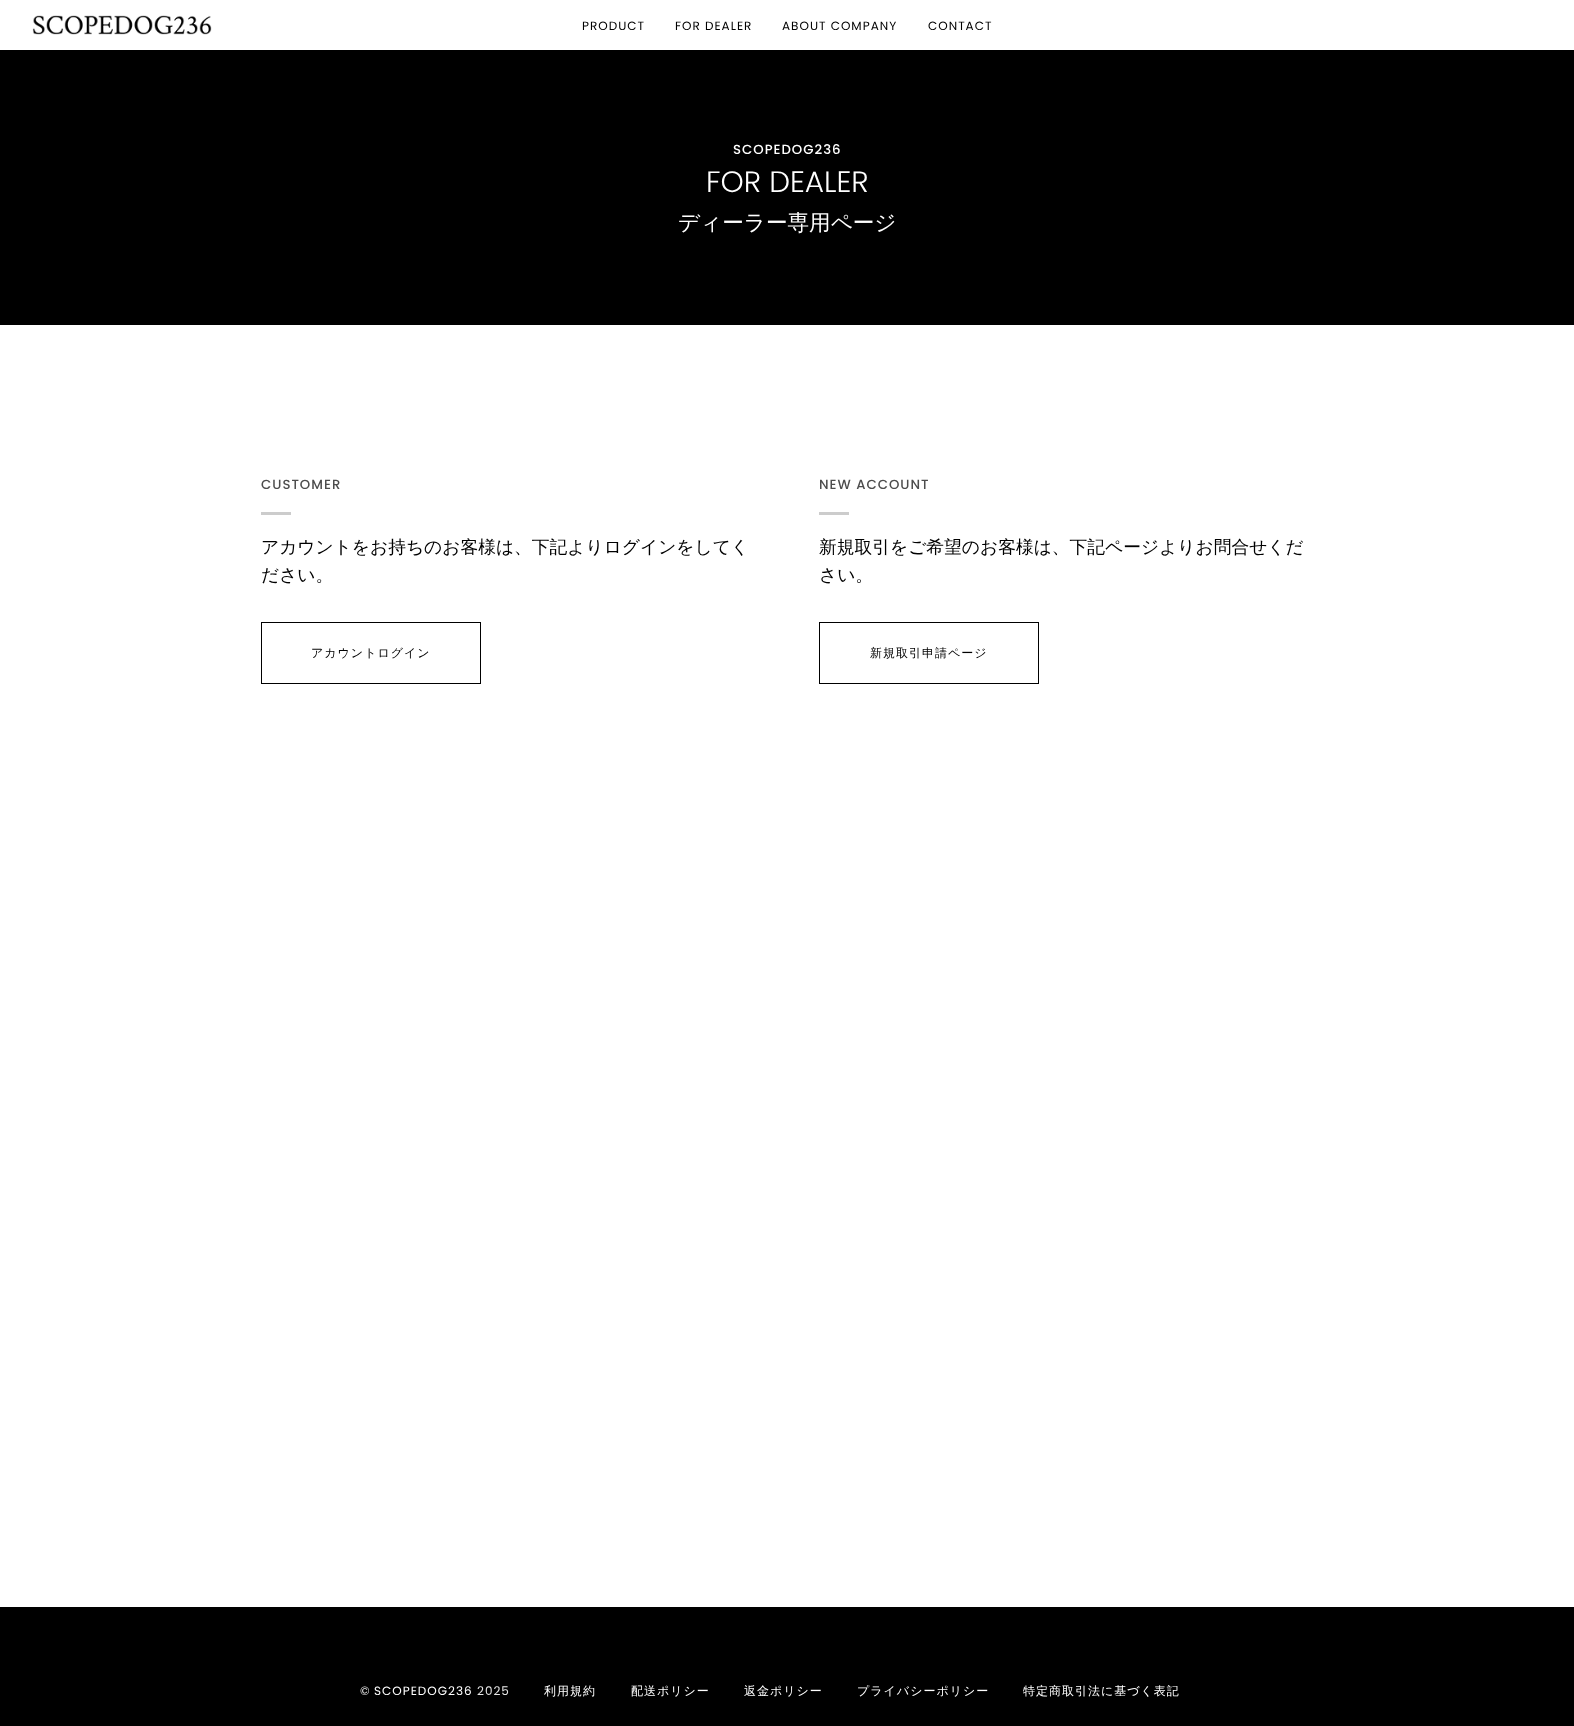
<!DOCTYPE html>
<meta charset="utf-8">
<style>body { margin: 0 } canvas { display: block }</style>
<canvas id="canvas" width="1574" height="1726"></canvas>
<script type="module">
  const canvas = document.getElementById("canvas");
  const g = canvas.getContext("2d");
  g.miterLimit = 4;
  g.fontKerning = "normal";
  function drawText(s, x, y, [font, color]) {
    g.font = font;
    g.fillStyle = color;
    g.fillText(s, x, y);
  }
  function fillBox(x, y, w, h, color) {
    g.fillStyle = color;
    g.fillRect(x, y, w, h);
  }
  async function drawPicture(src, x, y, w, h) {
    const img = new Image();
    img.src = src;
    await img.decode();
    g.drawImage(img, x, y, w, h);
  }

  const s1 = ["12px Poppins", "#000000"];
  const s2 = ["500 13.25px Poppins", "#FFFFFF"];
  const s3 = ["300 29.5px Poppins", "#FFFFFF"];
  const s4 = ["500 21.6px WenQuanYi Zen Hei", "#FFFFFF"];
  const s5 = ["500 13.25px Poppins", "#4D4D4D"];
  const s6 = ["500 17.75px WenQuanYi Zen Hei", "#000000"];
  const s7 = ["500 12px WenQuanYi Zen Hei", "#000000"];
  const s8 = ["12px Poppins", "#E6E6E6"];
  const s9 = ["12px Poppins", "#FFFFFF"];
  const s10 = ["500 12px WenQuanYi Zen Hei", "#FFFFFF"];

  fillBox(0, 0, 1574, 1726, "#FFFFFF");
  await drawPicture("pic1.png", 32, 15, 180, 20);
  g.letterSpacing = "1px";
  drawText("PRODUCT", 582, 30, s1);
  drawText("FOR DEALER", 675, 30, s1);
  drawText("ABOUT COMPANY", 782, 30, s1);
  drawText("CONTACT", 928, 30, s1);
  fillBox(0, 50, 1574, 275, "#000000");
  drawText("SCOPEDOG236", 733, 154, s2);
  g.letterSpacing = "0px";
  drawText("FOR DEALER", 706, 192, s3);
  drawText("ディーラー専用ページ", 678, 230, s4);
  g.letterSpacing = "1px";
  drawText("CUSTOMER", 261, 489, s5);
  fillBox(261, 512, 30, 3, "#CCCCCC");
  g.letterSpacing = "0px";
  drawText("アカウントをお持ちのお客様は、下記よりログインをしてく", 261, 553, s6);
  drawText("ださい。", 261, 581, s6);
  g.strokeStyle = "#000000";
  g.strokeRect(261.5, 622.5, 219, 61);
  g.letterSpacing = "1px";
  drawText("アカウントログイン", 311, 657, s7);
  drawText("NEW ACCOUNT", 819, 489, s5);
  fillBox(819, 512, 30, 3, "#CCCCCC");
  g.letterSpacing = "0px";
  drawText("新規取引をご希望のお客様は、下記ページよりお問合せくだ", 819, 553, s6);
  drawText("さい。", 819, 581, s6);
  g.strokeRect(819.5, 622.5, 219, 61);
  g.letterSpacing = "1px";
  drawText("新規取引申請ページ", 870, 657, s7);
  fillBox(0, 1607, 1574, 119, "#000000");
  drawText("©", 360, 1695, s8);
  drawText("SCOPEDOG236", 374, 1695, s9);
  drawText("2025", 477, 1695, s8);
  drawText("利用規約", 544, 1695, s10);
  drawText("配送ポリシー", 631, 1695, s10);
  drawText("返金ポリシー", 744, 1695, s10);
  drawText("プライバシーポリシー", 857, 1695, s10);
  drawText("特定商取引法に基づく表記", 1023, 1695, s10);
</script>
